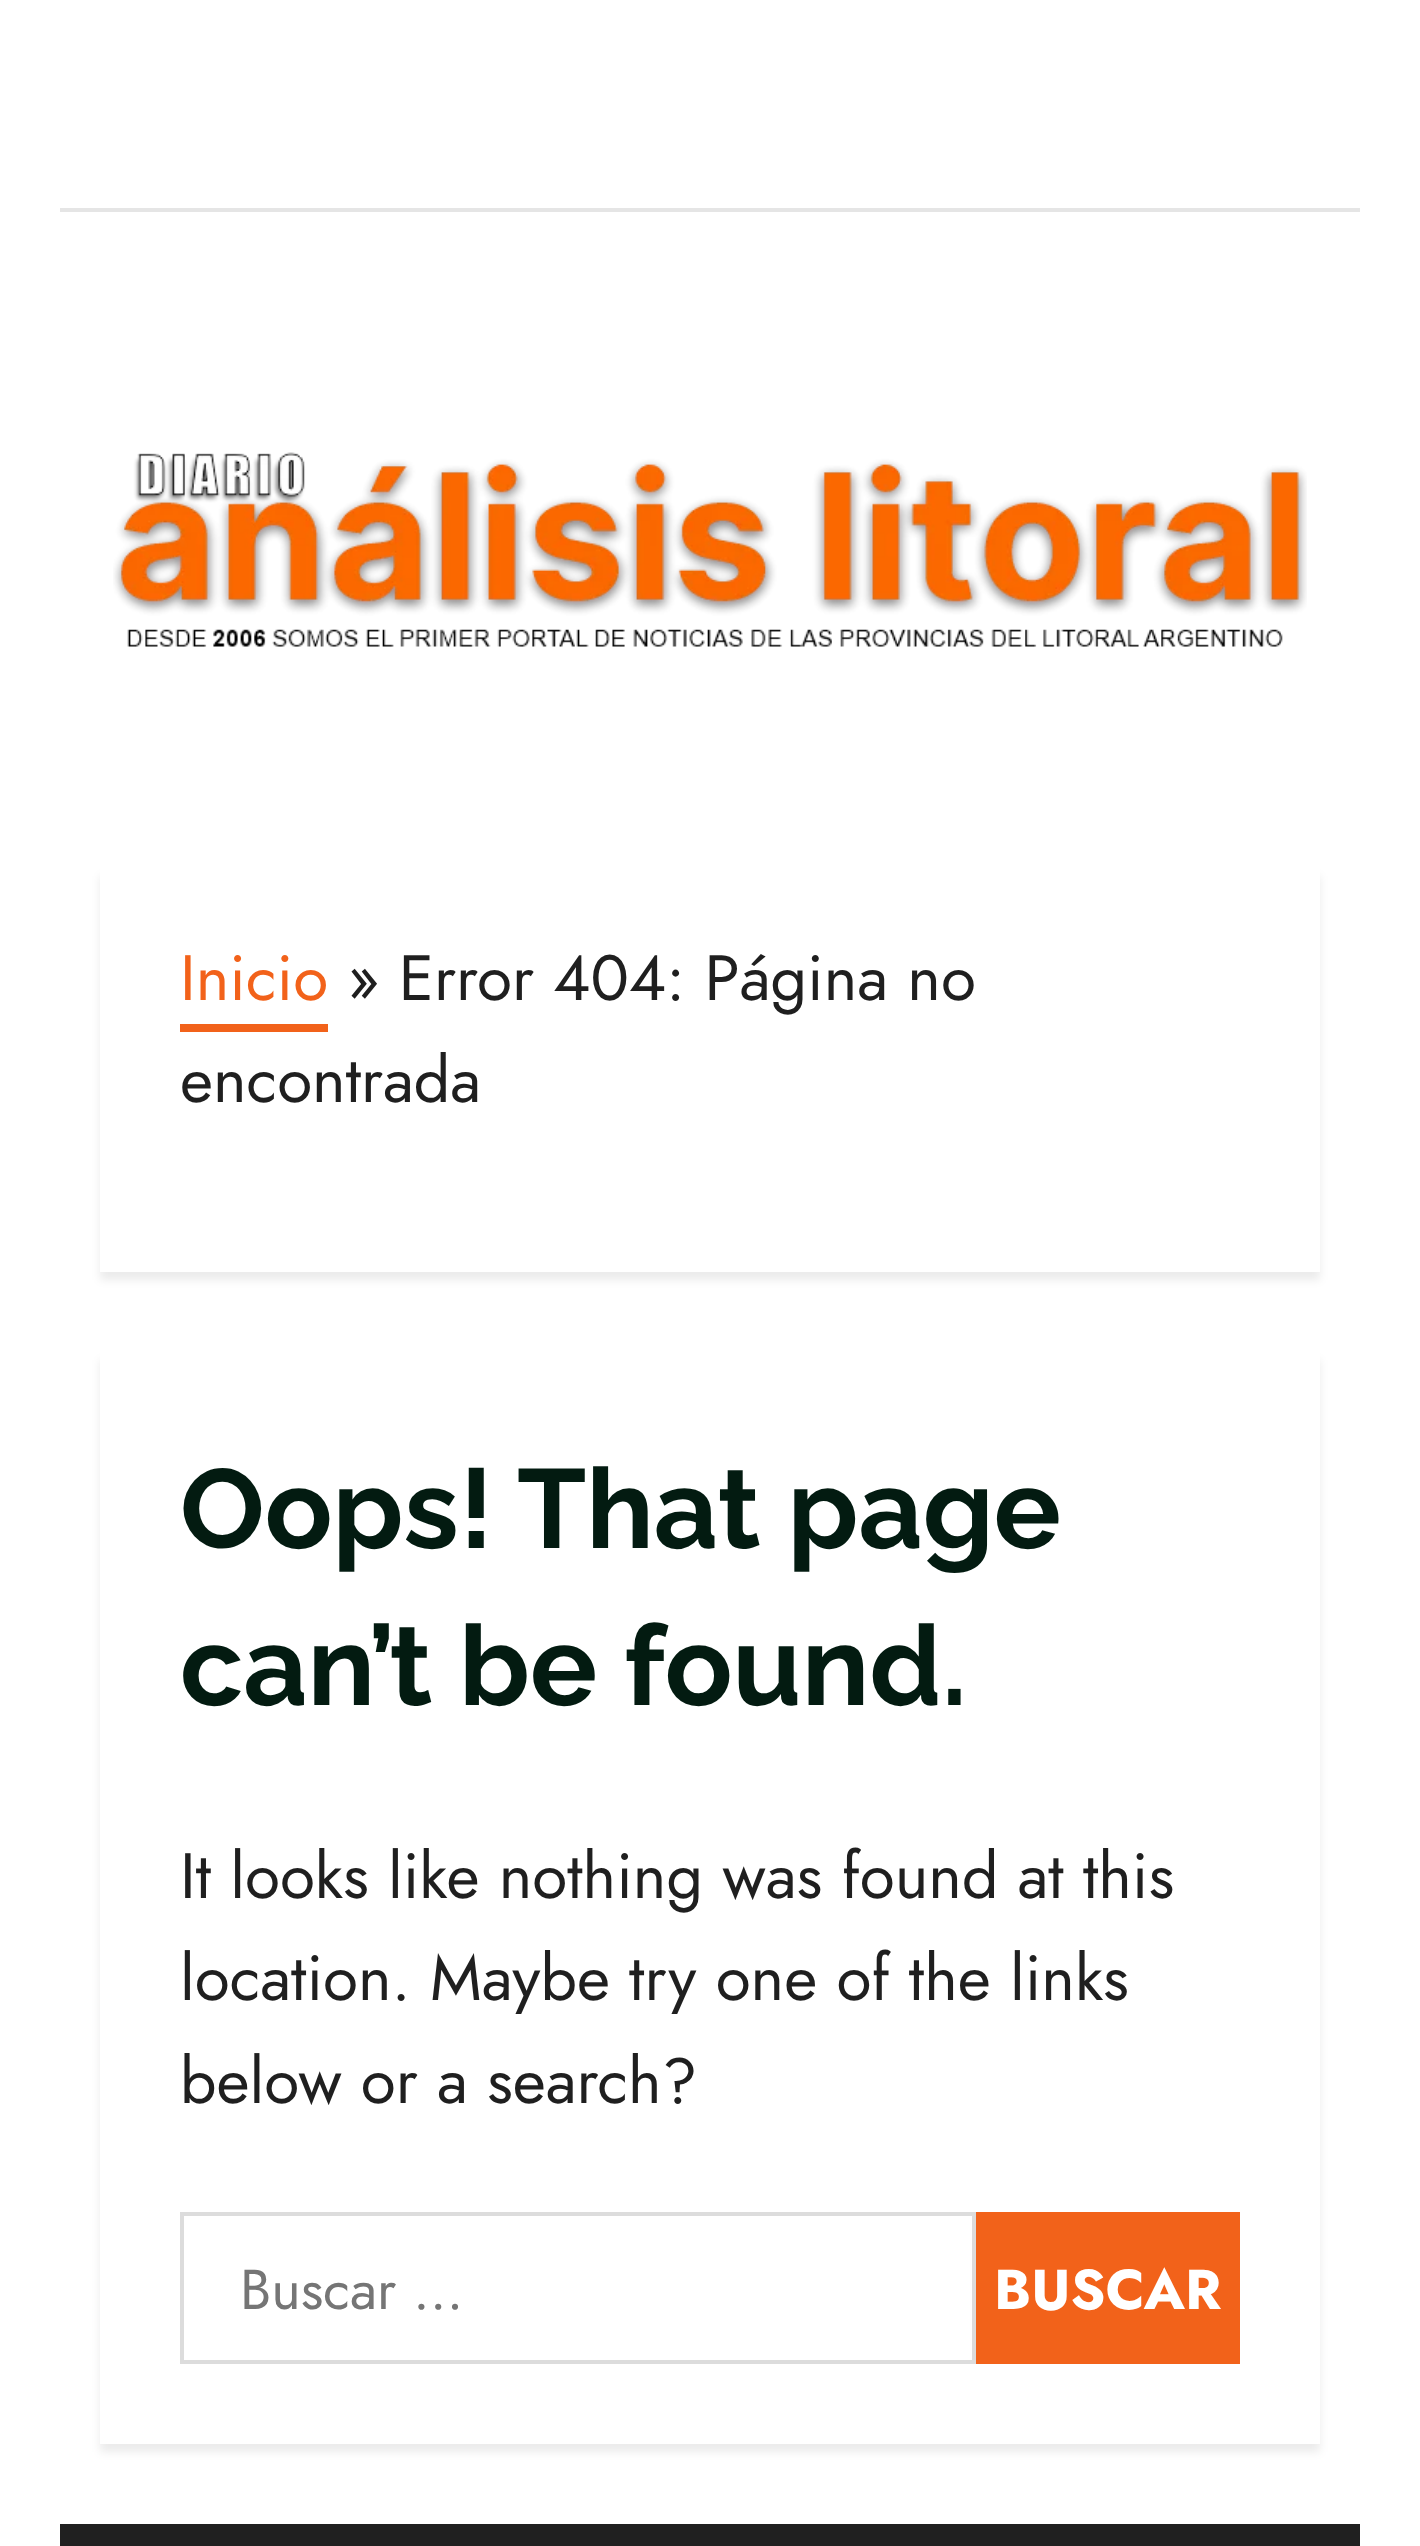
<!DOCTYPE html>
<meta charset="utf-8">
<style>body { margin: 0 } canvas { display: block }</style>
<canvas id="canvas" width="1420" height="2546"></canvas>
<script type="module">
  const canvas = document.getElementById("canvas");
  const g = canvas.getContext("2d");
  g.miterLimit = 4;
  g.fontKerning = "normal";
  function drawText(s, x, y, [font, color]) {
    g.font = font;
    g.fillStyle = color;
    g.fillText(s, x, y);
  }
  function fillBox(x, y, w, h, color) {
    g.fillStyle = color;
    g.fillRect(x, y, w, h);
  }
  async function drawPicture(src, x, y, w, h) {
    const img = new Image();
    img.src = src;
    await img.decode();
    g.drawImage(img, x, y, w, h);
  }

  const s1 = ["64px Jost", "#F2621A"];
  const s2 = ["64px Jost", "#1F1F1F"];
  const s3 = ["bold 112px Raleway", "#031B11"];
  const s4 = ["56px Jost", "#757575"];
  const s5 = ["bold 56px Jost", "#FFFFFF"];

  fillBox(0, 0, 1420, 2546, "#FFFFFF");
  fillBox(60, 208, 1300, 4, "#E5E5E5");
  await drawPicture("pic1.png", 113, 452, 1194, 195);
  g.save();
  g.beginPath();
  g.moveTo(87, 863);
  g.lineTo(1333, 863);
  g.lineTo(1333, 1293);
  g.lineTo(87, 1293);
  g.closePath();
  g.moveTo(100, 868);
  g.lineTo(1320, 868);
  g.lineTo(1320, 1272);
  g.lineTo(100, 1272);
  g.closePath();
  g.clip("evenodd");
  g.fillStyle = "rgba(0, 0, 0, 0.08)";
  g.filter = "blur(4px)";
  g.beginPath();
  g.rect(100, 876, 1220, 404);
  g.fill();
  g.filter = "none";
  g.restore();
  drawText("Inicio", 180, 1000, s1);
  fillBox(180, 1024, 148, 8, "#F2621A");
  drawText("» Error 404: Página no", 347, 1000, s2);
  drawText("encontrada", 180, 1102, s2);
  g.save();
  g.beginPath();
  g.moveTo(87, 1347);
  g.lineTo(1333, 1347);
  g.lineTo(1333, 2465);
  g.lineTo(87, 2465);
  g.closePath();
  g.moveTo(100, 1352);
  g.lineTo(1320, 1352);
  g.lineTo(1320, 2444);
  g.lineTo(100, 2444);
  g.closePath();
  g.clip("evenodd");
  g.fillStyle = "rgba(0, 0, 0, 0.08)";
  g.filter = "blur(4px)";
  g.beginPath();
  g.rect(100, 1360, 1220, 1092);
  g.fill();
  g.filter = "none";
  g.restore();
  drawText("Oops! That page", 180, 1548, s3);
  drawText("can’t be found.", 180, 1705, s3);
  drawText("It looks like nothing was found at this", 180, 1898, s2);
  drawText("location. Maybe try one of the links", 180, 2000, s2);
  drawText("below or a search?", 180, 2103, s2);
  g.strokeStyle = "#DCDCDC";
  g.lineWidth = 4;
  g.strokeRect(182, 2214, 792, 148);
  drawText("Buscar …", 240, 2309, s4);
  fillBox(976, 2212, 264, 152, "#F2621A");
  drawText("BUSCAR", 994, 2309, s5);
  fillBox(60, 2524, 1300, 22, "#202020");
</script>
